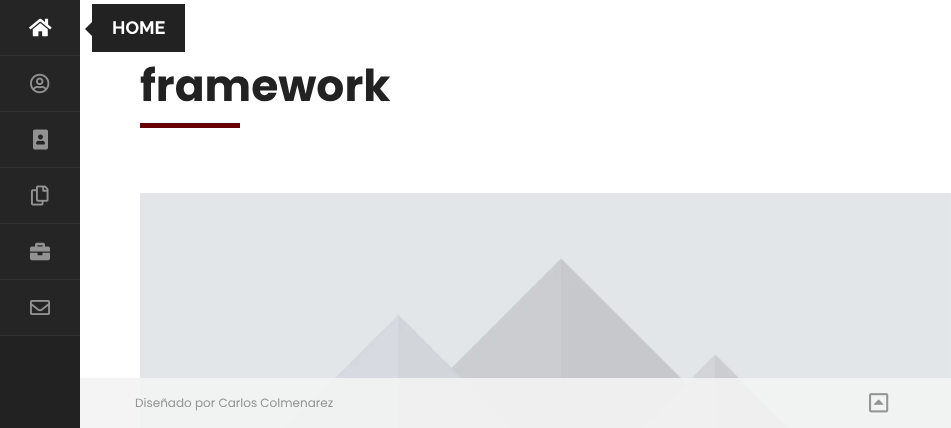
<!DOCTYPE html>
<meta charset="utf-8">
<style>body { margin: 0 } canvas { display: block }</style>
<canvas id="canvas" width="951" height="428"></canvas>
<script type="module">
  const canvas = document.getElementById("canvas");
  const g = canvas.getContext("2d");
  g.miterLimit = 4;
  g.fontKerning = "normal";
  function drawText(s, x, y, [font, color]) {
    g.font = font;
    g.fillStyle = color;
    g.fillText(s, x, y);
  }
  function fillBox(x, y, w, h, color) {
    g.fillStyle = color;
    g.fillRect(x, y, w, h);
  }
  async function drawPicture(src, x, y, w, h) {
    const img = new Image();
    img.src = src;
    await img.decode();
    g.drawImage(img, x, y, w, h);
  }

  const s1 = ["bold 18px Raleway", "#FFFFFF"];
  const s2 = ["bold 44px Poppins", "#222222"];
  const s3 = ["12px Poppins", "#949494"];

  fillBox(0, 0, 951, 428, "#FFFFFF");
  fillBox(0, 336, 80, 92, "#222222");
  fillBox(0, 0, 80, 55, "#252525");
  fillBox(0, 55, 80, 1, "#303030");
  await drawPicture("pic1.png", 29, 18, 23, 19);
  fillBox(0, 56, 80, 55, "#252525");
  fillBox(0, 111, 80, 1, "#303030");
  await drawPicture("pic2.png", 30, 73, 20, 21);
  fillBox(0, 112, 80, 55, "#252525");
  fillBox(0, 167, 80, 1, "#303030");
  await drawPicture("pic3.png", 33, 129, 15, 21);
  fillBox(0, 168, 80, 55, "#252525");
  fillBox(0, 223, 80, 1, "#303030");
  await drawPicture("pic4.png", 31, 185, 18, 21);
  fillBox(0, 224, 80, 55, "#252525");
  fillBox(0, 279, 80, 1, "#303030");
  await drawPicture("pic5.png", 30, 242, 20, 19);
  fillBox(0, 280, 80, 55, "#252525");
  fillBox(0, 335, 80, 1, "#303030");
  await drawPicture("pic6.png", 30, 300, 20, 15);
  fillBox(92, 4, 93, 48, "#222222");
  g.beginPath();
  g.moveTo(93, 21);
  g.lineTo(93, 37);
  g.lineTo(85, 29);
  g.closePath();
  g.fill();
  drawText("HOME", 112, 34, s1);
  drawText("framework", 140, 101, s2);
  fillBox(140, 123, 100, 5, "#660000");
  await drawPicture("pic7.png", 140, 193, 811, 235);
  fillBox(80, 378, 871, 50, "rgba(243, 243, 243, 0.9)");
  drawText("Diseñado por Carlos Colmenarez", 135, 407, s3);
  await drawPicture("pic8.png", 869, 393, 20, 20);
</script>
